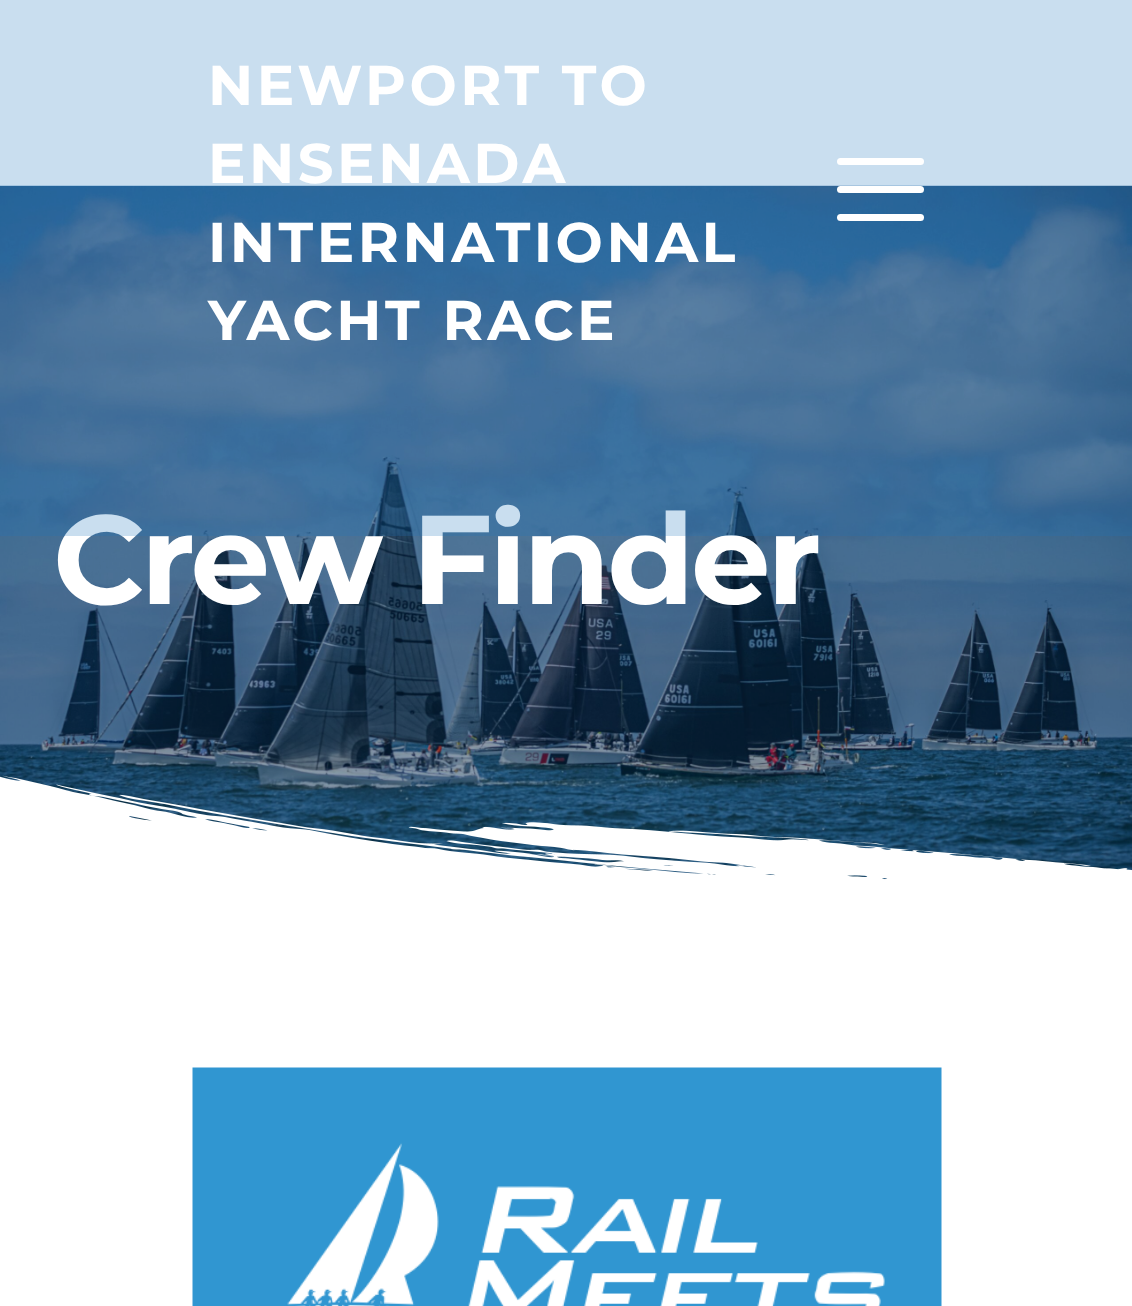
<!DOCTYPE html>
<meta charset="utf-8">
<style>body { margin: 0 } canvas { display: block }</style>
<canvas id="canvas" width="1132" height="1306"></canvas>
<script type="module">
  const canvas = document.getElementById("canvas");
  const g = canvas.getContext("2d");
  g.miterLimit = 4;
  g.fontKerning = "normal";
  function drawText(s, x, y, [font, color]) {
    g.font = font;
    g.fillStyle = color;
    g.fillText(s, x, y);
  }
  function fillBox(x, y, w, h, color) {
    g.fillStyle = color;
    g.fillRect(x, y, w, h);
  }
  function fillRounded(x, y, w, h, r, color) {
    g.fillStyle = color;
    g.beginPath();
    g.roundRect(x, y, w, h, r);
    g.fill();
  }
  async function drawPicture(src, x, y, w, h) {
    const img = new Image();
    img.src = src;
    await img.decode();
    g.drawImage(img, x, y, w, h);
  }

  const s1 = ["100 126px Montserrat", "#FFFFFF"];
  const s2 = ["100 56px Montserrat", "#FFFFFF"];

  fillBox(0, 0, 1132, 1306, "#FFFFFF");
  await drawPicture("pic1.png", 0, 185, 1132, 695);
  g.letterSpacing = "-3.5px";
  drawText("Crew Finder", 53, 604, s1);
  fillBox(0, 0, 1132, 536, "rgba(30, 115, 190, 0.24)");
  g.letterSpacing = "3.5px";
  drawText("NEWPORT TO", 208, 105, s2);
  drawText("ENSENADA", 208, 183, s2);
  drawText("INTERNATIONAL", 208, 262, s2);
  drawText("YACHT RACE", 208, 340, s2);
  fillRounded(837, 158, 87, 7, 3.5, "#FFFFFF");
  fillRounded(837, 186, 87, 7, 3.5, "#FFFFFF");
  fillRounded(837, 214, 87, 7, 3.5, "#FFFFFF");
  await drawPicture("pic2.png", 0, 775, 1132, 135);
  await drawPicture("pic3.png", 192, 1067, 750, 239);
</script>
